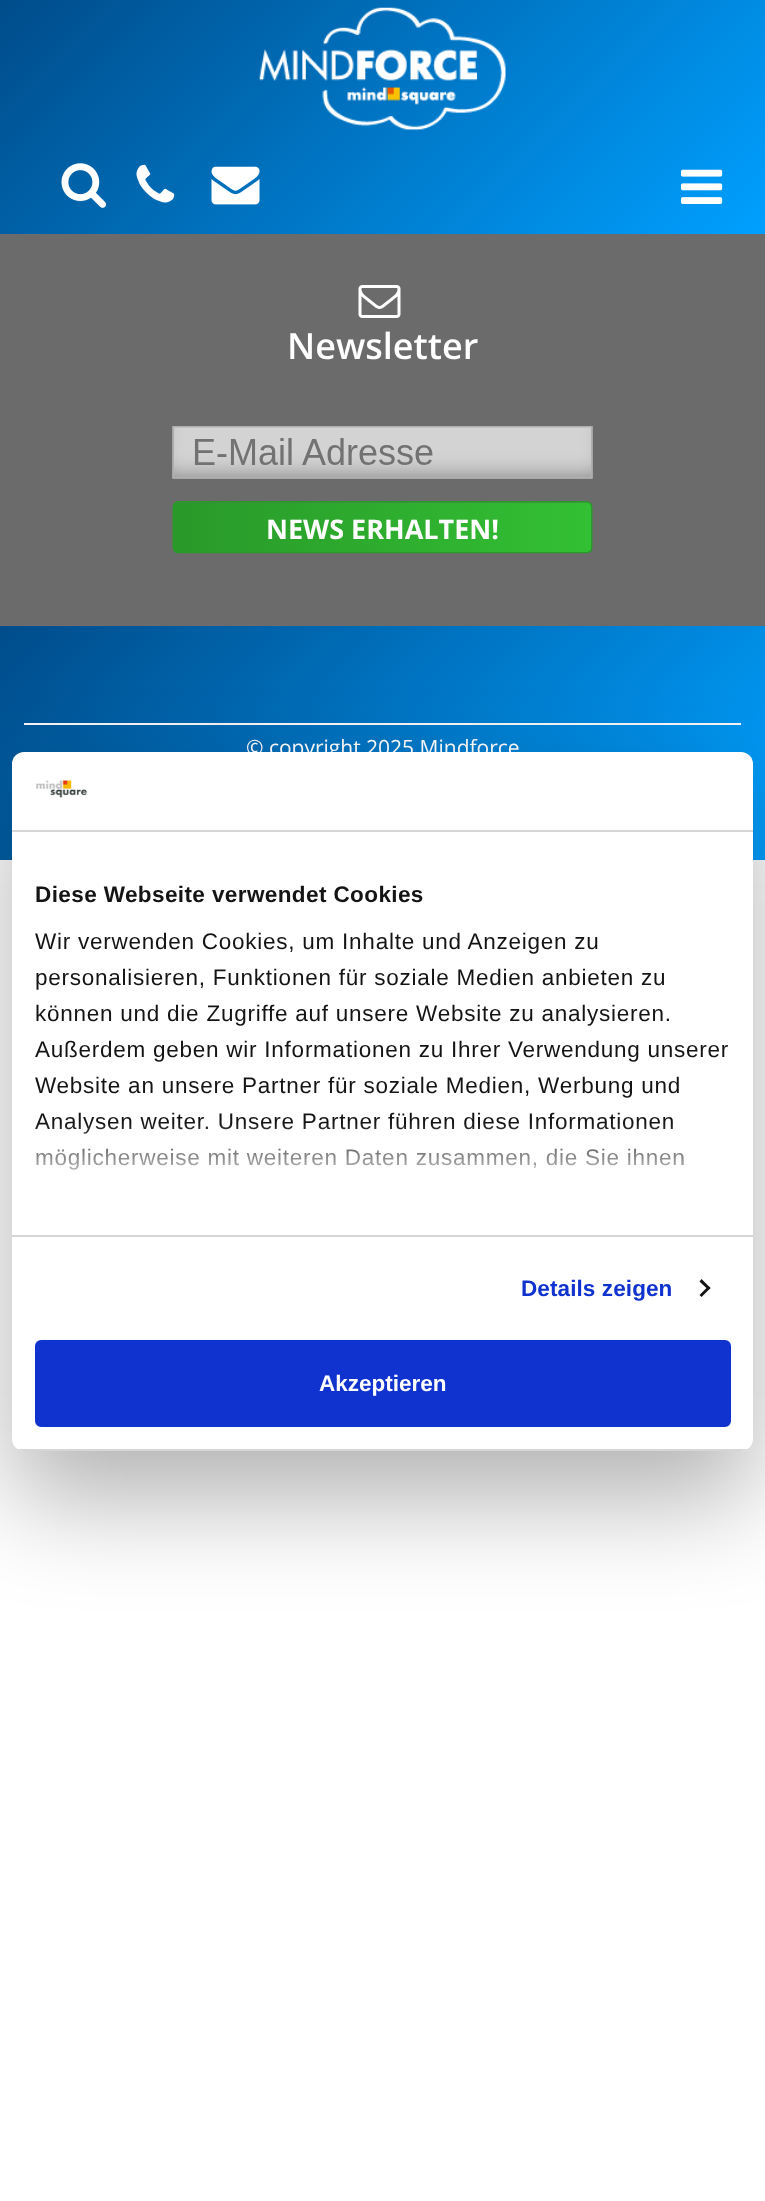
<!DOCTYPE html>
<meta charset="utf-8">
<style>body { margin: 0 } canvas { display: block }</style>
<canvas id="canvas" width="765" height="2201"></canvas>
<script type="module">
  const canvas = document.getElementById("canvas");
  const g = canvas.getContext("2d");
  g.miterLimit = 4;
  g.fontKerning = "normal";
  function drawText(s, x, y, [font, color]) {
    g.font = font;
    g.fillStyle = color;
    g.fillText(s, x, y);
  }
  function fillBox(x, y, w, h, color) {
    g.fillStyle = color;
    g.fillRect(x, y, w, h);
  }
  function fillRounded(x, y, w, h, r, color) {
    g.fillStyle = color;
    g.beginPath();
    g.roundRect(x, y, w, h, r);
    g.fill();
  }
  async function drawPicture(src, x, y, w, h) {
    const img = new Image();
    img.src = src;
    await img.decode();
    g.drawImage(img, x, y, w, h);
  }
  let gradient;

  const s1 = ["600 36px Open Sans", "#FFFFFF"];
  const s2 = ["21px Open Sans", "#FFFFFF"];
  const s3 = ["bold 22.5px Liberation Sans", "#141414"];
  const s4 = ["22.5px Liberation Sans", "#141414"];
  const s5 = ["bold 22.5px Liberation Sans", "#1032CF"];
  const s6 = ["bold 22.5px Liberation Sans", "#FFFFFF"];

  fillBox(0, 0, 765, 2201, "#FFFFFF");
  gradient = g.createLinearGradient(133, -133, 632, 367);
  gradient.addColorStop(0, "#004C8A");
  gradient.addColorStop(1, "#00A0FF");
  g.fillStyle = gradient;
  g.fillRect(0, 0, 765, 234);
  await drawPicture("pic1.png", 259, 7, 247, 124);
  await drawPicture("pic2.png", 61, 163, 46, 45);
  await drawPicture("pic3.png", 136, 164, 39, 39);
  await drawPicture("pic4.png", 211, 166, 49, 39);
  await drawPicture("pic5.png", 681, 169, 42, 35);
  fillBox(0, 234, 765, 392, "#6B6B6B");
  await drawPicture("pic6.png", 358, 285, 43, 33);
  drawText("Newsletter", 287, 359, s1);
  await drawPicture("pic7.png", 172, 426, 421, 128);
  gradient = g.createLinearGradient(133, 493, 632, 992);
  gradient.addColorStop(0, "#004C8A");
  gradient.addColorStop(1, "#00A0FF");
  g.fillStyle = gradient;
  g.fillRect(0, 626, 765, 234);
  fillBox(24, 723, 717, 2, "#F5F5F5");
  drawText("© copyright 2025 Mindforce", 246, 755, s2);
  g.fillStyle = "rgba(0, 0, 0, 0.3)";
  g.filter = "blur(51px)";
  g.beginPath();
  g.roundRect(12, 800, 741, 699, 12);
  g.fill();
  g.filter = "none";
  fillRounded(12, 752, 741, 699, 12, "#FFFFFF");
  fillBox(12, 830, 741, 2, "#D6D6D6");
  await drawPicture("pic8.png", 36, 780, 52, 18);
  fillBox(12, 1235, 741, 2, "#D6D6D6");
  g.letterSpacing = "0.4px";
  drawText("Diese Webseite verwendet Cookies", 35, 902, s3);
  g.letterSpacing = "0.75px";
  drawText("Wir verwenden Cookies, um Inhalte und Anzeigen zu", 35, 949, s4);
  drawText("personalisieren, Funktionen für soziale Medien anbieten zu", 35, 985, s4);
  drawText("können und die Zugriffe auf unsere Website zu analysieren.", 35, 1021, s4);
  drawText("Außerdem geben wir Informationen zu Ihrer Verwendung unserer", 35, 1057, s4);
  drawText("Website an unsere Partner für soziale Medien, Werbung und", 35, 1093, s4);
  drawText("Analysen weiter. Unsere Partner führen diese Informationen", 35, 1129, s4);
  drawText("möglicherweise mit weiteren Daten zusammen, die Sie ihnen", 35, 1165, s4);
  gradient = g.createLinearGradient(373, 1234, 373, 1122);
  gradient.addColorStop(0, "#FFFFFF");
  gradient.addColorStop(0.5, "rgba(255, 255, 255, 0.8)");
  gradient.addColorStop(1, "rgba(255, 255, 255, 0)");
  g.fillStyle = gradient;
  g.fillRect(34, 1124, 649, 46);
  g.letterSpacing = "0.1px";
  drawText("Details zeigen", 521, 1296, s5);
  g.fillStyle = "#141414";
  g.beginPath();
  g.moveTo(701.5, 1279);
  g.lineTo(710.5, 1288);
  g.lineTo(708.5, 1290);
  g.lineTo(699.5, 1281.5);
  g.closePath();
  g.fill();
  g.beginPath();
  g.moveTo(708.5, 1286);
  g.lineTo(710.5, 1288);
  g.lineTo(701.5, 1297);
  g.lineTo(699.5, 1295);
  g.closePath();
  g.fill();
  g.save();
  g.beginPath();
  g.roundRect(12, 752, 741, 699, 12);
  g.clip();
  fillBox(12, 1449, 741, 2, "#D6D6D6");
  g.restore();
  g.fillStyle = "#1032CF";
  g.beginPath();
  g.roundRect(36.5, 1341.5, 693, 84, 4.5);
  g.fill();
  g.strokeStyle = "#1032CF";
  g.lineWidth = 3;
  g.stroke();
  g.letterSpacing = "0px";
  drawText("Akzeptieren", 319, 1391, s6);
</script>
